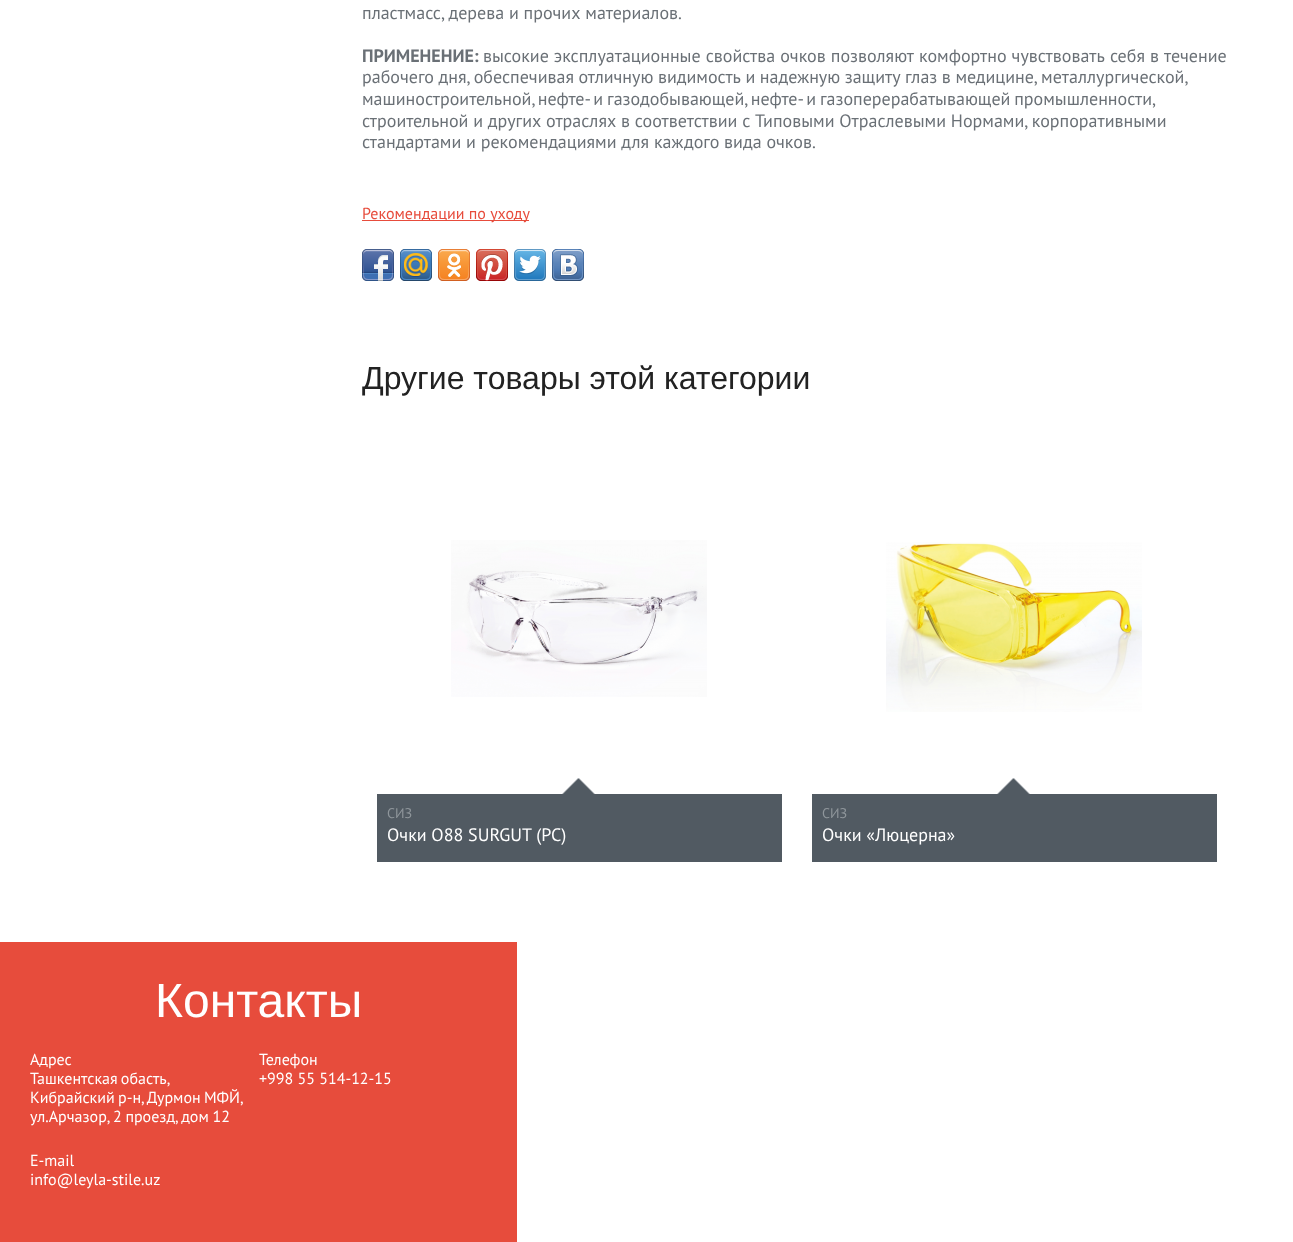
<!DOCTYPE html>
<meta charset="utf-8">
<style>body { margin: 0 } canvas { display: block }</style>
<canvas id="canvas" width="1293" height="1242"></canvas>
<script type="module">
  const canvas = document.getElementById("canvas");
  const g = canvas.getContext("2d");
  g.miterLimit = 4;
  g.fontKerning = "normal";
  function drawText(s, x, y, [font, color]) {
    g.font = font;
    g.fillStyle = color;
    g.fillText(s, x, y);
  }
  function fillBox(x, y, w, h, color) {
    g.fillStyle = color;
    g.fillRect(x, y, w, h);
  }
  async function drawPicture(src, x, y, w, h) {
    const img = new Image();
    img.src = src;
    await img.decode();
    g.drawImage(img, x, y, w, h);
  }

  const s1 = ["18px PT Sans", "#6A7076"];
  const s2 = ["bold 18px PT Sans", "#6A7076"];
  const s3 = ["16px PT Sans", "#E74C3C"];
  const s4 = ["32px Liberation Sans", "#222222"];
  const s5 = ["14px PT Sans", "#8F969B"];
  const s6 = ["18px PT Sans", "#FFFFFF"];
  const s7 = ["48px Liberation Sans", "#FFFFFF"];
  const s8 = ["16px PT Sans", "#FFFFFF"];

  fillBox(0, 0, 1293, 1242, "#FFFFFF");
  drawText("пластмасс, дерева и прочих материалов.", 362, 19, s1);
  drawText("ПРИМЕНЕНИЕ:", 362, 62, s2);
  g.wordSpacing = "0.25px";
  drawText("высокие эксплуатационные свойства очков позволяют комфортно чувствовать себя в течение", 483, 62, s1);
  g.wordSpacing = "-0.25px";
  drawText("рабочего дня, обеспечивая отличную видимость и надежную защиту глаз в медицине, металлургической,", 362, 83, s1);
  g.wordSpacing = "-1px";
  drawText("машиностроительной, нефте- и газодобывающей, нефте- и газоперерабатывающей промышленности,", 362, 105, s1);
  g.wordSpacing = "0px";
  drawText("строительной и других отраслях в соответствии с Типовыми Отраслевыми Нормами, корпоративными", 362, 127, s1);
  drawText("стандартами и рекомендациями для каждого вида очков.", 362, 148, s1);
  fillBox(362, 220, 167, 1, "#E74C3C");
  drawText("Рекомендации по уходу", 362, 219, s3);
  await drawPicture("pic1.png", 362, 249, 32, 32);
  await drawPicture("pic2.png", 400, 249, 32, 32);
  await drawPicture("pic3.png", 438, 249, 32, 32);
  await drawPicture("pic4.png", 476, 249, 32, 32);
  await drawPicture("pic5.png", 514, 249, 32, 32);
  await drawPicture("pic6.png", 552, 249, 32, 32);
  drawText("Другие товары этой категории", 362, 389, s4);
  await drawPicture("pic7.png", 451, 540, 256, 157);
  await drawPicture("pic8.png", 377, 778, 405, 84);
  drawText("СИЗ", 387, 818, s5);
  drawText("Очки O88 SURGUT (РС)", 387, 841, s6);
  await drawPicture("pic9.png", 886, 542, 256, 170);
  await drawPicture("pic8.png", 812, 778, 405, 84);
  drawText("СИЗ", 822, 818, s5);
  drawText("Очки «Люцерна»", 822, 841, s6);
  fillBox(0, 942, 517, 300, "#E74C3C");
  drawText("Контакты", 155, 1017, s7);
  drawText("Адрес", 30, 1065, s8);
  g.wordSpacing = "-1px";
  drawText("Ташкентская обасть,", 30, 1084, s8);
  drawText("Кибрайский р-н, Дурмон МФЙ,", 30, 1103, s8);
  g.wordSpacing = "-0.5px";
  drawText("ул.Арчазор, 2 проезд, дом 12", 30, 1122, s8);
  g.wordSpacing = "0px";
  drawText("E-mail", 30, 1166, s8);
  drawText("info@leyla-stile.uz", 30, 1185, s8);
  drawText("Телефон", 259, 1065, s8);
  drawText("+998 55 514-12-15", 259, 1084, s8);
</script>
